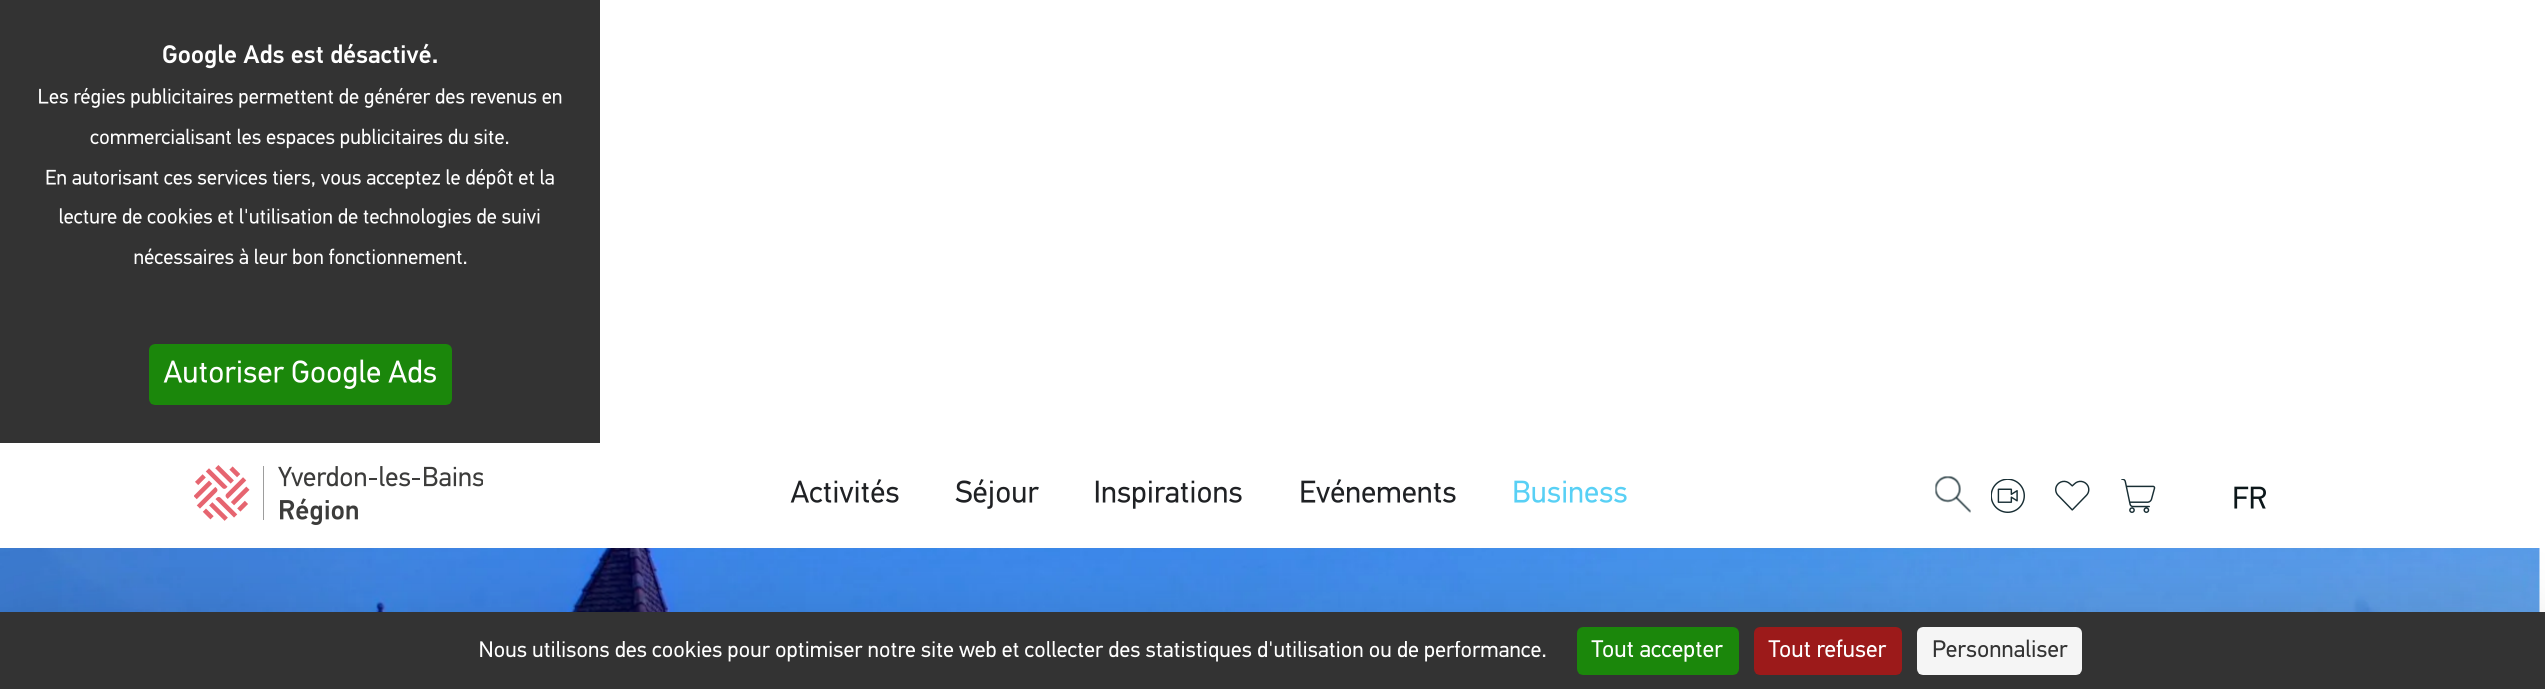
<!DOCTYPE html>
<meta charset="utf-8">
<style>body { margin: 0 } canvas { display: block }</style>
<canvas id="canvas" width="2545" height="689"></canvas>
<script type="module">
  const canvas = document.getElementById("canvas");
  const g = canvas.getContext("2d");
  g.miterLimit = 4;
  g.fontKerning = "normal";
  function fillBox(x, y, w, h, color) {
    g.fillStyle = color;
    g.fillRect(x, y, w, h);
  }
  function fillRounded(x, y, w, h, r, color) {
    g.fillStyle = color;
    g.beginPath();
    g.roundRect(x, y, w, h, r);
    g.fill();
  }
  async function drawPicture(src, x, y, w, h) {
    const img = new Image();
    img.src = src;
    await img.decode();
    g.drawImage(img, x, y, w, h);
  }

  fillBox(0, 0, 2545, 689, "#FFFFFF");
  fillBox(0, 0, 600, 443, "#333333");
  await drawPicture("pic1.png", 163, 43, 274, 26);
  await drawPicture("pic2.png", 39, 87, 523, 21);
  await drawPicture("pic3.png", 90, 128, 419, 21);
  await drawPicture("pic4.png", 46, 168, 508, 21);
  await drawPicture("pic5.png", 59, 208, 481, 20);
  await drawPicture("pic6.png", 134, 248, 333, 17);
  fillRounded(149, 344, 303, 61, 6, "#1B870B");
  await drawPicture("pic7.png", 163, 359, 273, 30);
  await drawPicture("pic8.png", 194, 465, 289, 60);
  await drawPicture("pic9.png", 790, 479, 109, 24);
  await drawPicture("pic10.png", 955, 479, 84, 30);
  await drawPicture("pic11.png", 1095, 480, 147, 29);
  await drawPicture("pic12.png", 1301, 479, 155, 24);
  await drawPicture("pic13.png", 1514, 480, 113, 23);
  await drawPicture("pic14.png", 1935, 476, 36, 37);
  await drawPicture("pic15.png", 1991, 479, 34, 34);
  await drawPicture("pic16.png", 2055, 480, 35, 31);
  await drawPicture("pic17.png", 2121, 479, 35, 34);
  await drawPicture("pic18.png", 2234, 486, 32, 23);
  await drawPicture("pic23.png", 0, 548, 2540, 64);
  g.fillStyle = "rgba(0, 0, 0, 0.25)";
  g.filter = "blur(45px)";
  g.beginPath();
  g.rect(0, 642, 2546, 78);
  g.fill();
  g.filter = "none";
  fillBox(0, 612, 2545, 77, "#333333");
  await drawPicture("pic19.png", 480, 641, 1066, 21);
  fillRounded(1577, 627, 162, 48, 6, "#1B870B");
  await drawPicture("pic20.png", 1591, 640, 132, 22);
  fillRounded(1754, 627, 148, 48, 6, "#9C1A1A");
  await drawPicture("pic21.png", 1768, 639, 119, 19);
  fillRounded(1917, 627, 165, 48, 6, "#F5F5F5");
  await drawPicture("pic22.png", 1933, 639, 135, 19);
</script>
